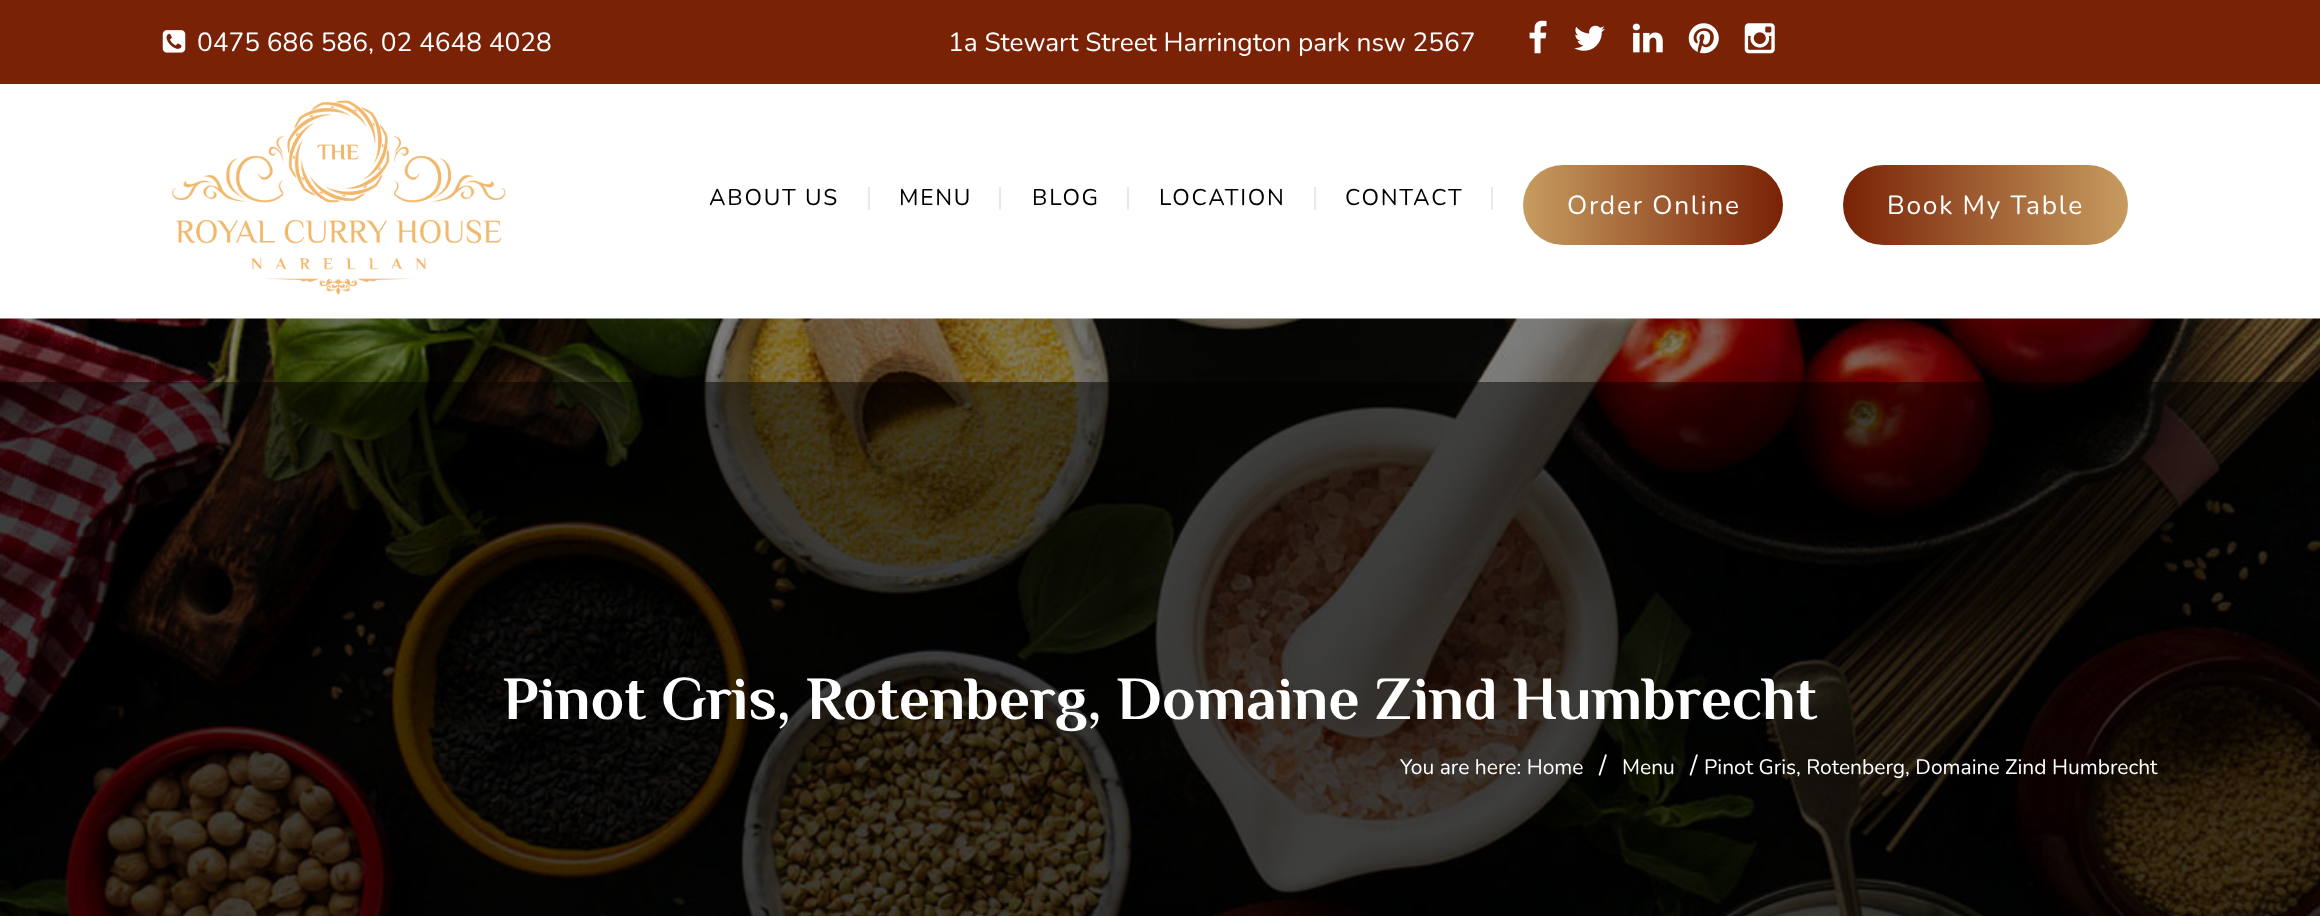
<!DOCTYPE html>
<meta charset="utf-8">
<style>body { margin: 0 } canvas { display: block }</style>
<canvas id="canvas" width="2320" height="916"></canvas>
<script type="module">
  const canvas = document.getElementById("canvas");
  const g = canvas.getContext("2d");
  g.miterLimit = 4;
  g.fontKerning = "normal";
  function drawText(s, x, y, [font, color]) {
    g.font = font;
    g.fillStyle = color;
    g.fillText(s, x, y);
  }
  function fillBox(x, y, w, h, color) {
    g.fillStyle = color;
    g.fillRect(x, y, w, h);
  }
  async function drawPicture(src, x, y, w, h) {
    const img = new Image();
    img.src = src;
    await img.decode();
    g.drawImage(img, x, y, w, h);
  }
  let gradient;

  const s1 = ["26.25px Nunito", "#FFFFFF"];
  const s2 = ["22.75px Nunito", "#000000"];
  const s3 = ["bold 61.25px Philosopher", "#FFFFFF"];
  const s4 = ["21px Nunito", "#FFFFFF"];

  fillBox(0, 0, 2320, 916, "#FFFFFF");
  fillBox(0, 0, 2320, 84, "#792206");
  await drawPicture("pic1.png", 162, 30, 24, 23);
  drawText("0475 686 586, 02 4648 4028", 197, 51, s1);
  drawText("1a Stewart Street Harrington park nsw 2567", 948, 51, s1);
  await drawPicture("pic2.png", 1529, 20, 18, 34);
  await drawPicture("pic3.png", 1574, 25, 31, 26);
  await drawPicture("pic4.png", 1632, 23, 31, 30);
  await drawPicture("pic5.png", 1688, 23, 31, 31);
  await drawPicture("pic6.png", 1744, 23, 31, 31);
  await drawPicture("pic7.png", 172, 100, 334, 195);
  g.letterSpacing = "1.75px";
  drawText("ABOUT US", 709, 205, s2);
  fillBox(868, 187, 2, 23, "#E9E9E9");
  drawText("MENU", 899, 205, s2);
  fillBox(999, 187, 2, 23, "#E9E9E9");
  drawText("BLOG", 1032, 205, s2);
  fillBox(1127, 187, 2, 23, "#E9E9E9");
  drawText("LOCATION", 1159, 205, s2);
  fillBox(1314, 187, 2, 23, "#E9E9E9");
  drawText("CONTACT", 1345, 205, s2);
  fillBox(1491, 187, 2, 23, "#E9E9E9");
  gradient = g.createLinearGradient(1523, 205, 1783, 205);
  gradient.addColorStop(0, "#C79C60");
  gradient.addColorStop(1, "#792206");
  g.fillStyle = gradient;
  g.beginPath();
  g.roundRect(1523, 165, 260, 80, 40);
  g.fill();
  drawText("Order Online", 1567, 214, s1);
  gradient = g.createLinearGradient(1843, 205, 2128, 205);
  gradient.addColorStop(0, "#792206");
  gradient.addColorStop(1, "#C79C60");
  g.fillStyle = gradient;
  g.beginPath();
  g.roundRect(1843, 165, 285, 80, 40);
  g.fill();
  drawText("Book My Table", 1887, 214, s1);
  await drawPicture("pic8.png", 0, 318, 2320, 598);
  fillBox(0, 382, 2320, 534, "rgba(0, 0, 0, 0.5)");
  g.letterSpacing = "0px";
  drawText("Pinot Gris, Rotenberg, Domaine Zind Humbrecht", 503, 719, s3);
  drawText("You are here: Home", 1400, 774, s4);
  drawText("/", 1599, 774, s1);
  drawText("Menu", 1622, 774, s4);
  drawText("/", 1690, 774, s1);
  drawText("Pinot Gris, Rotenberg, Domaine Zind Humbrecht", 1704, 774, s4);
</script>
